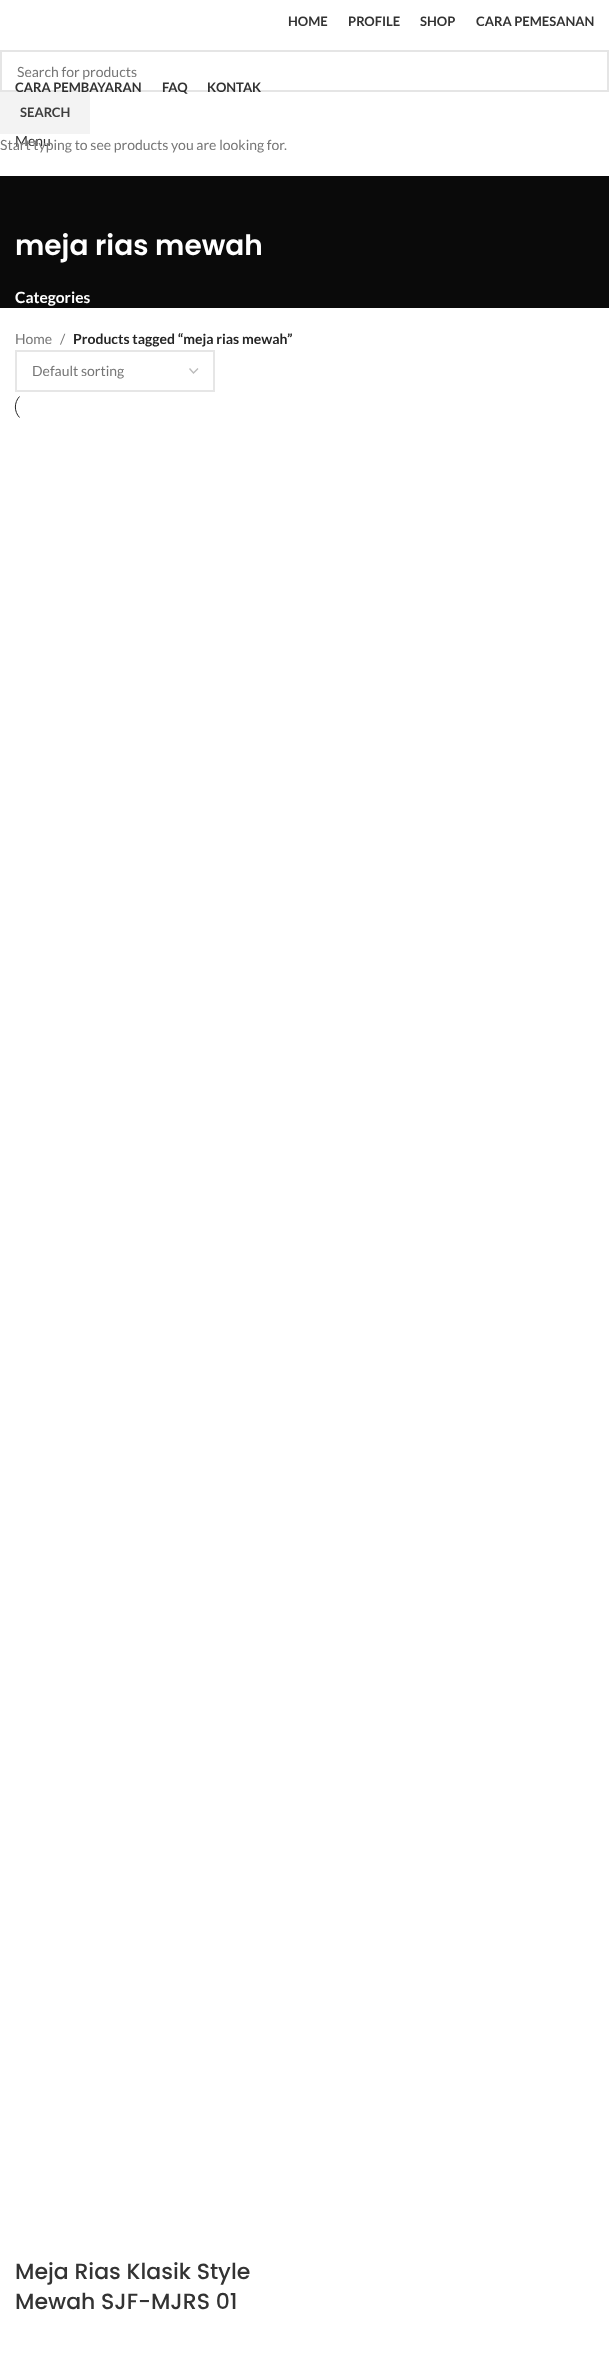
<!DOCTYPE html>
<meta charset="utf-8">
<style>body { margin: 0 } canvas { display: block }</style>
<canvas id="canvas" width="609" height="2371"></canvas>
<script type="module">
  const canvas = document.getElementById("canvas");
  const g = canvas.getContext("2d");
  g.miterLimit = 4;
  g.fontKerning = "normal";
  function drawText(s, x, y, [font, color]) {
    g.font = font;
    g.fillStyle = color;
    g.fillText(s, x, y);
  }
  function fillBox(x, y, w, h, color) {
    g.fillStyle = color;
    g.fillRect(x, y, w, h);
  }

  const s1 = ["bold 13px Lato", "#333333"];
  const s2 = ["14px Lato", "#333333"];
  const s3 = ["600 28px Poppins", "#FFFFFF"];
  const s4 = ["bold 15.5px Lato", "#FFFFFF"];
  const s5 = ["14px Lato", "#767676"];
  const s6 = ["bold 14px Lato", "#242424"];
  const s7 = ["500 22px Poppins", "#333333"];
  const s8 = ["bold 13px Lato", "#3E3E3E"];

  fillBox(0, 0, 609, 2371, "#FFFFFF");
  drawText("HOME", 288, 26, s1);
  drawText("PROFILE", 348, 26, s1);
  drawText("SHOP", 420, 26, s1);
  drawText("CARA PEMESANAN", 476, 26, s1);
  drawText("CARA PEMBAYARAN", 15, 92, s1);
  drawText("FAQ", 162, 92, s1);
  drawText("KONTAK", 207, 92, s1);
  drawText("Menu", 15, 146, s2);
  fillBox(0, 176, 609, 132, "#0A0A0A");
  drawText("meja rias mewah", 15, 255, s3);
  drawText("Categories", 15, 303, s4);
  drawText("Home", 15, 344, s5);
  drawText("/", 60, 344, s5);
  drawText("Products tagged “meja rias mewah”", 73, 344, s6);
  g.beginPath();
  g.moveTo(189.5, 368.5);
  g.lineTo(193.5, 373);
  g.lineTo(198, 368.5);
  g.strokeStyle = "#BBBBBB";
  g.lineWidth = 1.4;
  g.stroke();
  g.strokeStyle = "#E6E6E6";
  g.lineWidth = 2;
  g.strokeRect(16, 351, 198, 40);
  drawText("Default sorting", 32, 376, s5);
  g.beginPath();
  g.moveTo(19.5, 417.5);
  g.bezierCurveTo(14, 411.5, 14, 402.5, 19.5, 396.5);
  g.strokeStyle = "#242424";
  g.lineWidth = 1;
  g.stroke();
  drawText("Meja Rias Klasik Style", 15, 2279, s7);
  drawText("Mewah SJF-MJRS 01", 15, 2309, s7);
  g.strokeStyle = "rgba(0, 0, 0, 0.1)";
  g.lineWidth = 2;
  g.strokeRect(1, 51, 607, 40);
  drawText("Search for products", 17, 77, s5);
  fillBox(0, 92, 90, 42, "#F3F3F3");
  drawText("SEARCH", 20, 117, s8);
  drawText("Start typing to see products you are looking for.", 0, 150, s5);
</script>
